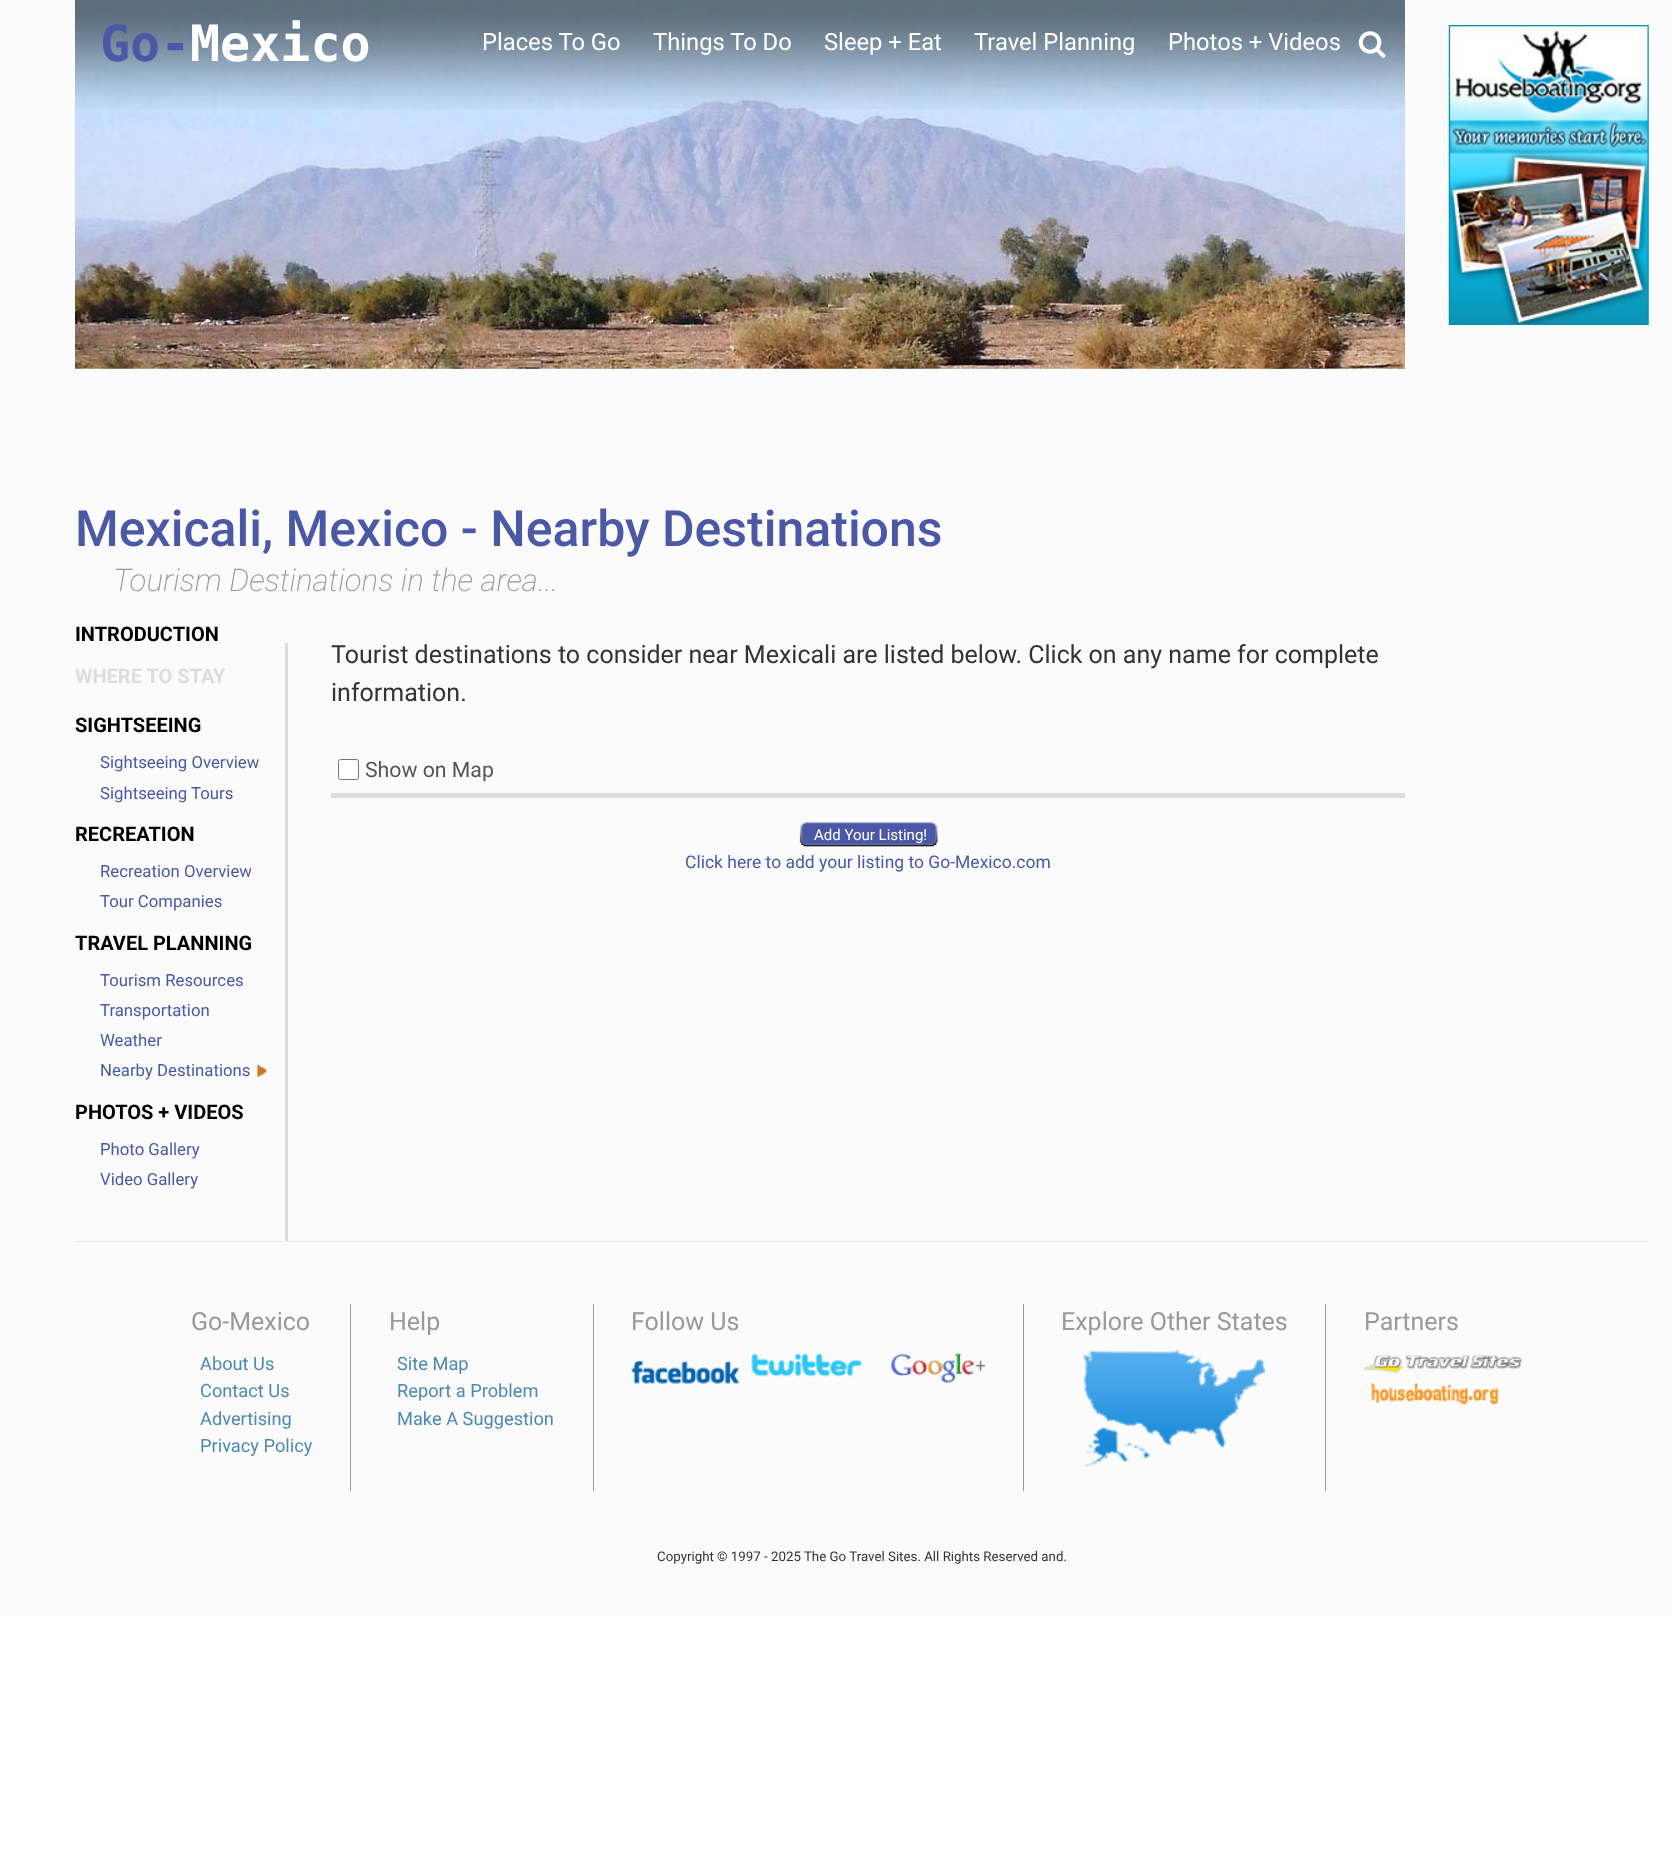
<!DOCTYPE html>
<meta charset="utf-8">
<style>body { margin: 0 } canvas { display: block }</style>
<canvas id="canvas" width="1673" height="1866"></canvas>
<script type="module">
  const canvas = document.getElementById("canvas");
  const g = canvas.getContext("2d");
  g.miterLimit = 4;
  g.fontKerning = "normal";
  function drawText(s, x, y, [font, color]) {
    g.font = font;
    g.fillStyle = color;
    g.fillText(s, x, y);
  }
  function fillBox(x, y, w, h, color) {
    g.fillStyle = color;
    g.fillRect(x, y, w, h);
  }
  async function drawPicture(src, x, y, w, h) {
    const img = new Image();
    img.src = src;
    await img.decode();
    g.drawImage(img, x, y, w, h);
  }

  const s1 = ["bold 50px DejaVu Sans Mono", "#4A58A6"];
  const s2 = ["bold 50px DejaVu Sans Mono", "#FFFFFF"];
  const s3 = ["23.75px Roboto", "#FFFFFF"];
  const s4 = ["500 50px Roboto", "#4A58A6"];
  const s5 = ["italic 200 31.25px Roboto", "#999999"];
  const s6 = ["bold 20px Roboto", "#000000"];
  const s7 = ["bold 20px Roboto", "#DDDDDD"];
  const s8 = ["16.75px Roboto", "#4A58A6"];
  const s9 = ["25px Roboto", "#333333"];
  const s10 = ["21.25px Roboto", "#555555"];
  const s11 = ["15px Roboto", "#FFFFFF"];
  const s12 = ["17.5px Roboto", "#4A58A6"];
  const s13 = ["25px Roboto", "#999999"];
  const s14 = ["18.25px Roboto", "#4D8AB1"];
  const s15 = ["13.3px Roboto", "#333333"];

  fillBox(0, 0, 1673, 1866, "#FFFFFF");
  fillBox(0, 0, 1673, 1616, "#FBFBFB");
  await drawPicture("pic1.png", 75, 0, 1330, 369);
  await drawPicture("pic2.png", 75, 0, 1330, 109);
  drawText("Go-", 100, 61, s1);
  drawText("Mexico", 190, 61, s2);
  drawText("Places To Go", 482, 50, s3);
  drawText("Things To Do", 653, 50, s3);
  drawText("Sleep + Eat", 824, 50, s3);
  drawText("Travel Planning", 974, 50, s3);
  drawText("Photos + Videos", 1168, 50, s3);
  await drawPicture("pic3.png", 1358, 31, 28, 27);
  drawText("Mexicali, Mexico - Nearby Destinations", 75, 546, s4);
  drawText("Tourism Destinations in the area...", 113, 591, s5);
  fillBox(285, 643, 3, 598, "#DCDDDE");
  drawText("INTRODUCTION", 75, 641, s6);
  drawText("WHERE TO STAY", 75, 683, s7);
  drawText("SIGHTSEEING", 75, 732, s6);
  drawText("Sightseeing Overview", 100, 768, s8);
  drawText("Sightseeing Tours", 100, 799, s8);
  drawText("RECREATION", 75, 841, s6);
  drawText("Recreation Overview", 100, 877, s8);
  drawText("Tour Companies", 100, 907, s8);
  drawText("TRAVEL PLANNING", 75, 950, s6);
  drawText("Tourism Resources", 100, 986, s8);
  drawText("Transportation", 100, 1016, s8);
  drawText("Weather", 100, 1046, s8);
  drawText("Nearby Destinations", 100, 1076, s8);
  await drawPicture("pic4.png", 257, 1064, 10, 14);
  drawText("PHOTOS + VIDEOS", 75, 1119, s6);
  drawText("Photo Gallery", 100, 1155, s8);
  drawText("Video Gallery", 100, 1185, s8);
  drawText("Tourist destinations to consider near Mexicali are listed below. Click on any name for complete", 331, 663, s9);
  drawText("information.", 331, 701, s9);
  fillBox(331, 793, 1074, 5, "#DEDEDF");
  g.fillStyle = "#FFFFFF";
  g.beginPath();
  g.roundRect(338.5, 759.5, 20, 20, 2);
  g.fill();
  g.strokeStyle = "#767676";
  g.stroke();
  drawText("Show on Map", 365, 777, s10);
  await drawPicture("pic5.png", 799, 822, 139, 25);
  drawText("Add Your Listing!", 814, 840, s11);
  drawText("Click here to add your listing to Go-Mexico.com", 685, 868, s12);
  await drawPicture("pic6.png", 1448, 25, 201, 300);
  fillBox(75, 1241, 1574, 1, "#EEEEEE");
  fillBox(350, 1304, 1, 187, "#999999");
  drawText("Go-Mexico", 191, 1330, s13);
  drawText("About Us", 200, 1370, s14);
  drawText("Contact Us", 200, 1397, s14);
  drawText("Advertising", 200, 1425, s14);
  drawText("Privacy Policy", 200, 1452, s14);
  fillBox(593, 1304, 1, 187, "#999999");
  drawText("Help", 389, 1330, s13);
  drawText("Site Map", 397, 1370, s14);
  drawText("Report a Problem", 397, 1397, s14);
  drawText("Make A Suggestion", 397, 1425, s14);
  fillBox(1023, 1304, 1, 187, "#999999");
  drawText("Follow Us", 631, 1330, s13);
  await drawPicture("pic7.png", 631, 1360, 109, 24);
  await drawPicture("pic8.png", 751, 1353, 112, 24);
  await drawPicture("pic9.png", 891, 1353, 94, 30);
  fillBox(1325, 1304, 1, 187, "#999999");
  drawText("Explore Other States", 1061, 1330, s13);
  await drawPicture("pic10.png", 1083, 1350, 182, 117);
  drawText("Partners", 1364, 1330, s13);
  await drawPicture("pic11.png", 1363, 1355, 160, 19);
  await drawPicture("pic12.png", 1371, 1382, 128, 24);
  drawText("Copyright © 1997 - 2025 The Go Travel Sites. All Rights Reserved and.", 657, 1561, s15);
</script>
